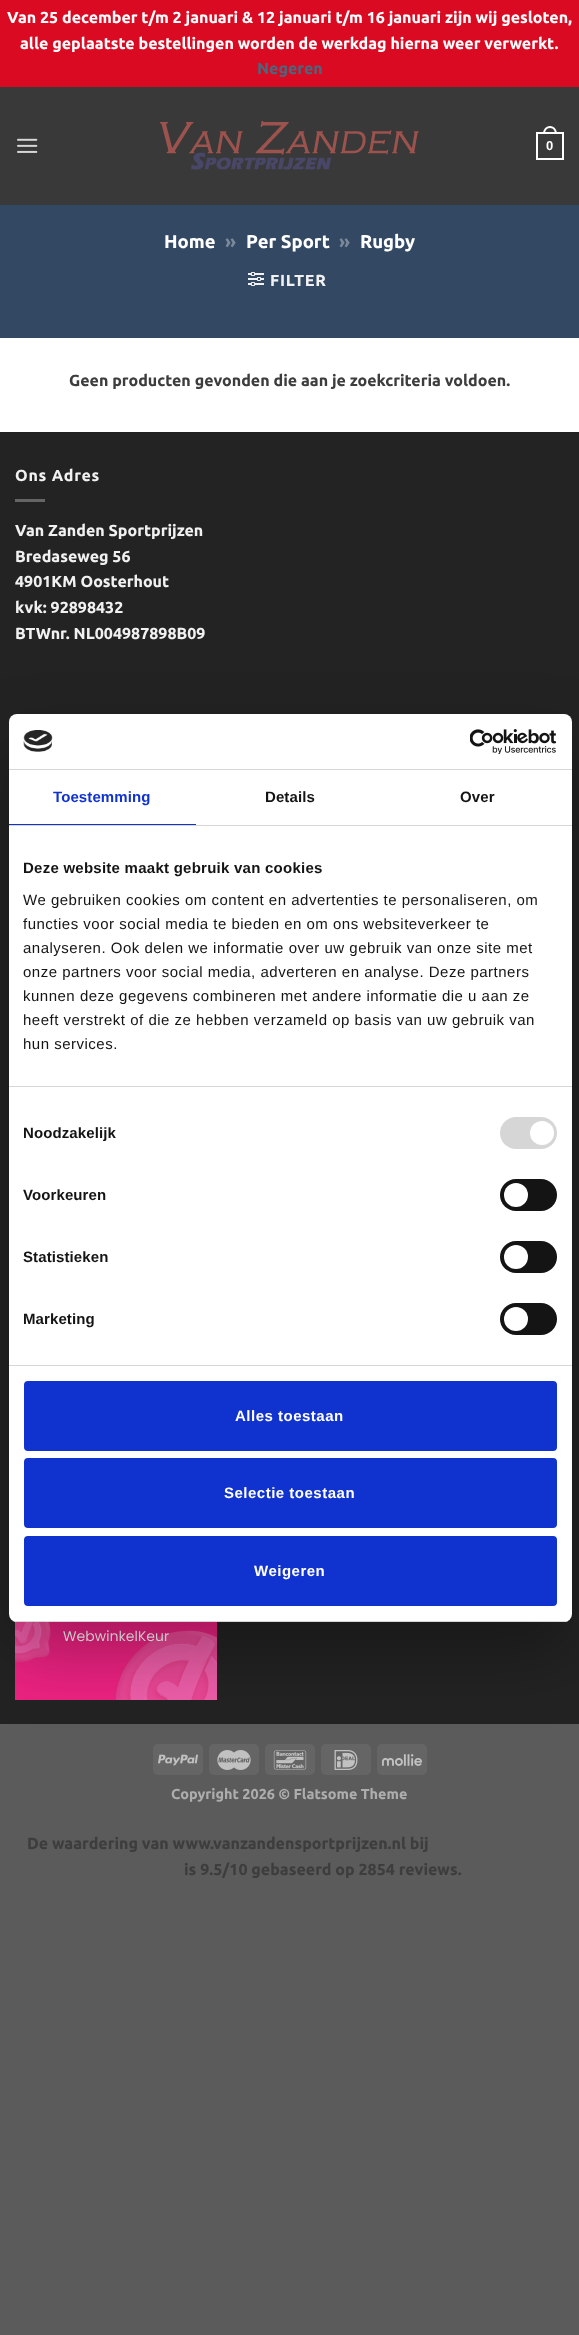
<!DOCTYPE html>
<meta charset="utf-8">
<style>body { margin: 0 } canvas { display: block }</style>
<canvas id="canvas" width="579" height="2335"></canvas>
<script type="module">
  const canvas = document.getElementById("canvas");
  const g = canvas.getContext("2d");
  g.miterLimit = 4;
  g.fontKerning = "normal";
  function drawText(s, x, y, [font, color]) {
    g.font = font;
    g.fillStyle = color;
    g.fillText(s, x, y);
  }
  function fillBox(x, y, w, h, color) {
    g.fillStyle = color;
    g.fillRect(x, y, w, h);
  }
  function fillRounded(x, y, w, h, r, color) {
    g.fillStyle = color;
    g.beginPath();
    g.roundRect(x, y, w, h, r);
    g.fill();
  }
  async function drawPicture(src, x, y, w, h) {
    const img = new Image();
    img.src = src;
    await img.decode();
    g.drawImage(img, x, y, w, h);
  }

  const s1 = ["bold 16px Ubuntu", "#FFFFFF"];
  const s2 = ["bold 16px Ubuntu", "#4E657B"];
  const s3 = ["bold 13px Liberation Sans", "#FFFFFF"];
  const s4 = ["bold 18.5px Ubuntu", "#FFFFFF"];
  const s5 = ["bold 18.5px Ubuntu", "#7A889A"];
  const s6 = ["bold 16px Ubuntu", "#F1F1F1"];
  const s7 = ["bold 16px Ubuntu", "#3D3D3D"];
  const s8 = ["bold 14.4px Ubuntu", "#ADADAD"];
  const s9 = ["bold 15px Liberation Sans", "#1032CF"];
  const s10 = ["bold 15px Liberation Sans", "#141414"];
  const s11 = ["15px Liberation Sans", "#141414"];
  const s12 = ["bold 15px Liberation Sans", "#FFFFFF"];

  fillBox(0, 0, 579, 2335, "#5B5B5B");
  fillBox(0, 0, 579, 87, "#DA0A22");
  drawText("Van 25 december t/m 2 januari & 12 januari t/m 16 januari zijn wij gesloten,", 7, 23, s1);
  drawText("alle geplaatste bestellingen worden de werkdag hierna weer verwerkt.", 20, 49, s1);
  drawText("Negeren", 257, 74, s2);
  fillBox(0, 338, 579, 94, "#FFFFFF");
  fillBox(0, 87, 579, 118, "#393939");
  await drawPicture("pic1.png", 17, 138, 21, 15);
  await drawPicture("pic2.png", 160, 121, 259, 49);
  g.strokeStyle = "#FFFFFF";
  g.lineWidth = 2;
  g.strokeRect(537, 133, 26, 26);
  g.fillStyle = "#FFFFFF";
  g.beginPath();
  g.moveTo(550, 126);
  g.bezierCurveTo(554.5, 126, 557, 130, 557, 134);
  g.lineTo(543, 134);
  g.bezierCurveTo(543, 130, 545.5, 126, 550, 126);
  g.closePath();
  g.moveTo(550, 128);
  g.bezierCurveTo(553.5, 128, 555, 131, 555, 134);
  g.lineTo(545, 134);
  g.bezierCurveTo(545, 131, 546.5, 128, 550, 128);
  g.closePath();
  g.fill("evenodd");
  drawText("0", 546, 150, s3);
  fillBox(0, 205, 579, 133, "#334863");
  drawText("Home", 164, 248, s4);
  drawText("»", 225, 248, s5);
  drawText("Per Sport", 246, 248, s4);
  drawText("»", 339, 248, s5);
  drawText("Rugby", 360, 248, s4);
  await drawPicture("pic3.png", 248, 272, 16, 14);
  g.letterSpacing = "0.75px";
  drawText("FILTER", 270, 286, s6);
  g.letterSpacing = "0px";
  drawText("Geen producten gevonden die aan je zoekcriteria voldoen.", 69, 386, s7);
  fillBox(0, 433, 579, 1291, "#232323");
  fillBox(0, 432, 579, 1, "#212121");
  g.letterSpacing = "0.75px";
  drawText("Ons Adres", 15, 481, s6);
  fillBox(15, 499, 30, 3, "#656565");
  g.letterSpacing = "0px";
  drawText("Van Zanden Sportprijzen", 15, 536, s6);
  drawText("Bredaseweg 56", 15, 562, s6);
  drawText("4901KM Oosterhout", 15, 587, s6);
  drawText("kvk: 92898432", 15, 613, s6);
  drawText("BTWnr. NL004987898B09", 15, 639, s6);
  await drawPicture("pic4.png", 15, 1621, 202, 79);
  fillRounded(153, 1744, 50, 31, 5, "#656565");
  await drawPicture("pic5.png", 158, 1754, 40, 12);
  fillRounded(209, 1744, 50, 31, 5, "#656565");
  await drawPicture("pic6.png", 217, 1750, 34, 20);
  fillRounded(265, 1744, 50, 31, 5, "#656565");
  await drawPicture("pic7.png", 273, 1750, 34, 20);
  fillRounded(321, 1744, 50, 31, 5, "#656565");
  await drawPicture("pic8.png", 334, 1750, 24, 20);
  fillRounded(377, 1744, 50, 31, 5, "#656565");
  await drawPicture("pic9.png", 382, 1754, 40, 12);
  drawText("Copyright 2026 © Flatsome Theme", 171, 1799, s8);
  g.fillStyle = "rgba(0, 0, 0, 0.3)";
  g.filter = "blur(34px)";
  g.beginPath();
  g.roundRect(9, 746, 563, 908, 8);
  g.fill();
  g.filter = "none";
  fillRounded(9, 714, 563, 908, 8, "#FFFFFF");
  fillBox(9, 769, 563, 1, "#D6D6D6");
  await drawPicture("pic10.png", 23, 730, 30, 22);
  await drawPicture("pic11.png", 470, 729, 87, 25);
  fillBox(9, 825, 563, 1, "#D6D6D6");
  fillBox(9, 824, 187, 1, "#1032CF");
  g.letterSpacing = "0.1px";
  drawText("Toestemming", 53, 802, s9);
  drawText("Details", 265, 802, s10);
  drawText("Over", 460, 802, s10);
  fillBox(9, 1086, 563, 1, "#D6D6D6");
  g.letterSpacing = "0.25px";
  drawText("Deze website maakt gebruik van cookies", 23, 873, s10);
  g.letterSpacing = "0.5px";
  drawText("We gebruiken cookies om content en advertenties te personaliseren, om", 23, 905, s11);
  drawText("functies voor social media te bieden en om ons websiteverkeer te", 23, 929, s11);
  drawText("analyseren. Ook delen we informatie over uw gebruik van onze site met", 23, 953, s11);
  drawText("onze partners voor social media, adverteren en analyse. Deze partners", 23, 977, s11);
  drawText("kunnen deze gegevens combineren met andere informatie die u aan ze", 23, 1001, s11);
  drawText("heeft verstrekt of die ze hebben verzameld op basis van uw gebruik van", 23, 1025, s11);
  drawText("hun services.", 23, 1049, s11);
  fillBox(9, 1365, 563, 1, "#D6D6D6");
  g.letterSpacing = "0.1px";
  drawText("Noodzakelijk", 23, 1138, s10);
  fillRounded(500, 1117, 57, 32, 16, "#D6D6D6");
  g.fillStyle = "#FFFFFF";
  g.beginPath();
  g.arc(542, 1133, 12, 0, Math.PI * 2);
  g.fill();
  drawText("Voorkeuren", 23, 1200, s10);
  fillRounded(500, 1179, 57, 32, 16, "#141414");
  g.fillStyle = "#FFFFFF";
  g.beginPath();
  g.arc(516, 1195, 12, 0, Math.PI * 2);
  g.fill();
  drawText("Statistieken", 23, 1262, s10);
  fillRounded(500, 1241, 57, 32, 16, "#141414");
  g.fillStyle = "#FFFFFF";
  g.beginPath();
  g.arc(516, 1257, 12, 0, Math.PI * 2);
  g.fill();
  drawText("Marketing", 23, 1324, s10);
  fillRounded(500, 1303, 57, 32, 16, "#141414");
  g.fillStyle = "#FFFFFF";
  g.beginPath();
  g.arc(516, 1319, 12, 0, Math.PI * 2);
  g.fill();
  g.save();
  g.beginPath();
  g.roundRect(9, 714, 563, 908, 8);
  g.clip();
  fillBox(9, 1621, 563, 1, "#D6D6D6");
  g.restore();
  g.fillStyle = "#1032CF";
  g.beginPath();
  g.roundRect(25, 1382, 531, 68, 3);
  g.fill();
  g.strokeStyle = "#1032CF";
  g.stroke();
  g.letterSpacing = "0.5px";
  drawText("Alles toestaan", 235, 1421, s12);
  g.fillStyle = "#1032CF";
  g.beginPath();
  g.roundRect(25, 1459, 531, 68, 3);
  g.fill();
  g.stroke();
  drawText("Selectie toestaan", 224, 1498, s12);
  g.fillStyle = "#1032CF";
  g.beginPath();
  g.roundRect(25, 1537, 531, 68, 3);
  g.fill();
  g.stroke();
  drawText("Weigeren", 254, 1576, s12);
  g.letterSpacing = "0px";
  drawText("De waardering van www.vanzandensportprijzen.nl bij", 27, 1849, s7);
  drawText("is 9.5/10 gebaseerd op 2854 reviews.", 184, 1875, s7);
</script>
